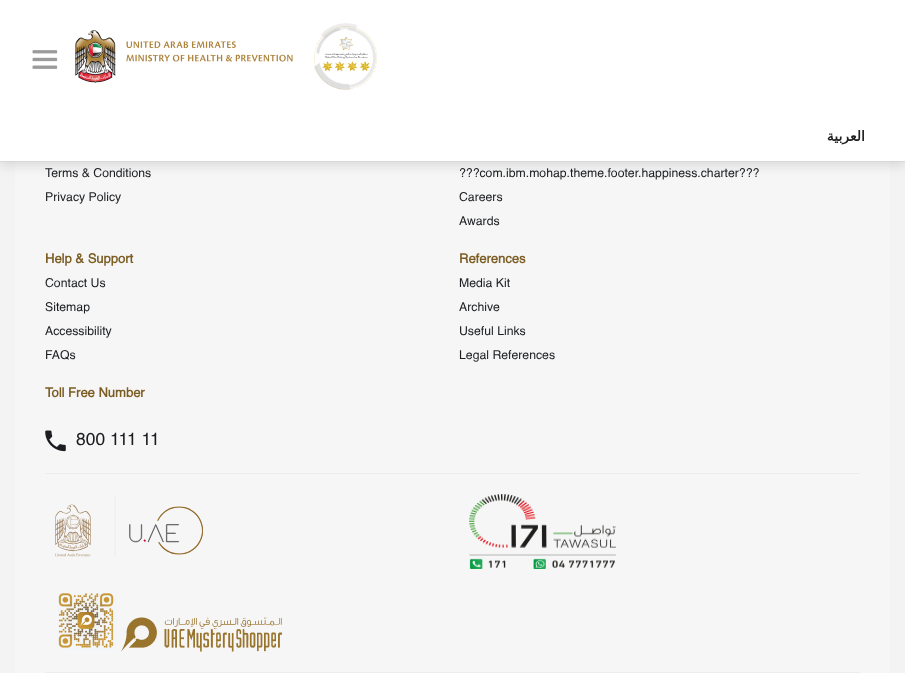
<!DOCTYPE html>
<meta charset="utf-8">
<style>body { margin: 0 } canvas { display: block }</style>
<canvas id="canvas" width="905" height="673"></canvas>
<script type="module">
  const canvas = document.getElementById("canvas");
  const g = canvas.getContext("2d");
  g.miterLimit = 4;
  g.fontKerning = "normal";
  function drawText(s, x, y, [font, color]) {
    g.font = font;
    g.fillStyle = color;
    g.fillText(s, x, y);
  }
  function fillBox(x, y, w, h, color) {
    g.fillStyle = color;
    g.fillRect(x, y, w, h);
  }
  async function drawPicture(src, x, y, w, h) {
    const img = new Image();
    img.src = src;
    await img.decode();
    g.drawImage(img, x, y, w, h);
  }

  const s1 = ["bold 14px DejaVu Sans", "#222222"];
  const s2 = ["12.25px Helvetica", "#1B1D21"];
  const s3 = ["bold 13px Helvetica", "#7C5E24"];
  const s4 = ["17.5px Helvetica", "#1B1D21"];

  fillBox(0, 0, 905, 673, "#F3F3F3");
  fillBox(15, 161, 875, 512, "#F6F6F6");
  g.fillStyle = "rgba(155, 155, 155, 0.34)";
  g.filter = "blur(6px)";
  g.beginPath();
  g.rect(0, 4, 905, 161);
  g.fill();
  g.filter = "none";
  fillBox(0, 161, 905, 1, "rgba(198, 198, 198, 0.32)");
  fillBox(0, 0, 905, 161, "#FFFFFF");
  await drawPicture("pic1.png", 32, 50, 26, 19);
  await drawPicture("pic2.png", 75, 30, 218, 53);
  await drawPicture("pic3.png", 314, 23, 63, 67);
  g.direction = "rtl";
  drawText("العربية", 865, 141, s1);
  g.direction = "ltr";
  drawText("Terms & Conditions", 45, 177, s2);
  drawText("Privacy Policy", 45, 201, s2);
  drawText("???com.ibm.mohap.theme.footer.happiness.charter???", 459, 177, s2);
  drawText("Careers", 459, 201, s2);
  drawText("Awards", 459, 225, s2);
  drawText("Help & Support", 45, 263, s3);
  drawText("Contact Us", 45, 287, s2);
  drawText("Sitemap", 45, 311, s2);
  drawText("Accessibility", 45, 335, s2);
  drawText("FAQs", 45, 359, s2);
  drawText("References", 459, 263, s3);
  drawText("Media Kit", 459, 287, s2);
  drawText("Archive", 459, 311, s2);
  drawText("Useful Links", 459, 335, s2);
  drawText("Legal References", 459, 359, s2);
  drawText("Toll Free Number", 45, 397, s3);
  await drawPicture("pic4.png", 45, 430, 21, 22);
  drawText("800 111 11", 76, 445, s4);
  fillBox(45, 473, 815, 1, "#ECECEC");
  fillBox(45, 672, 815, 1, "#ECECEC");
  await drawPicture("pic5.png", 55, 495, 148, 62);
  await drawPicture("pic6.png", 469, 494, 147, 75);
  await drawPicture("pic7.png", 58, 593, 224, 59);
</script>
